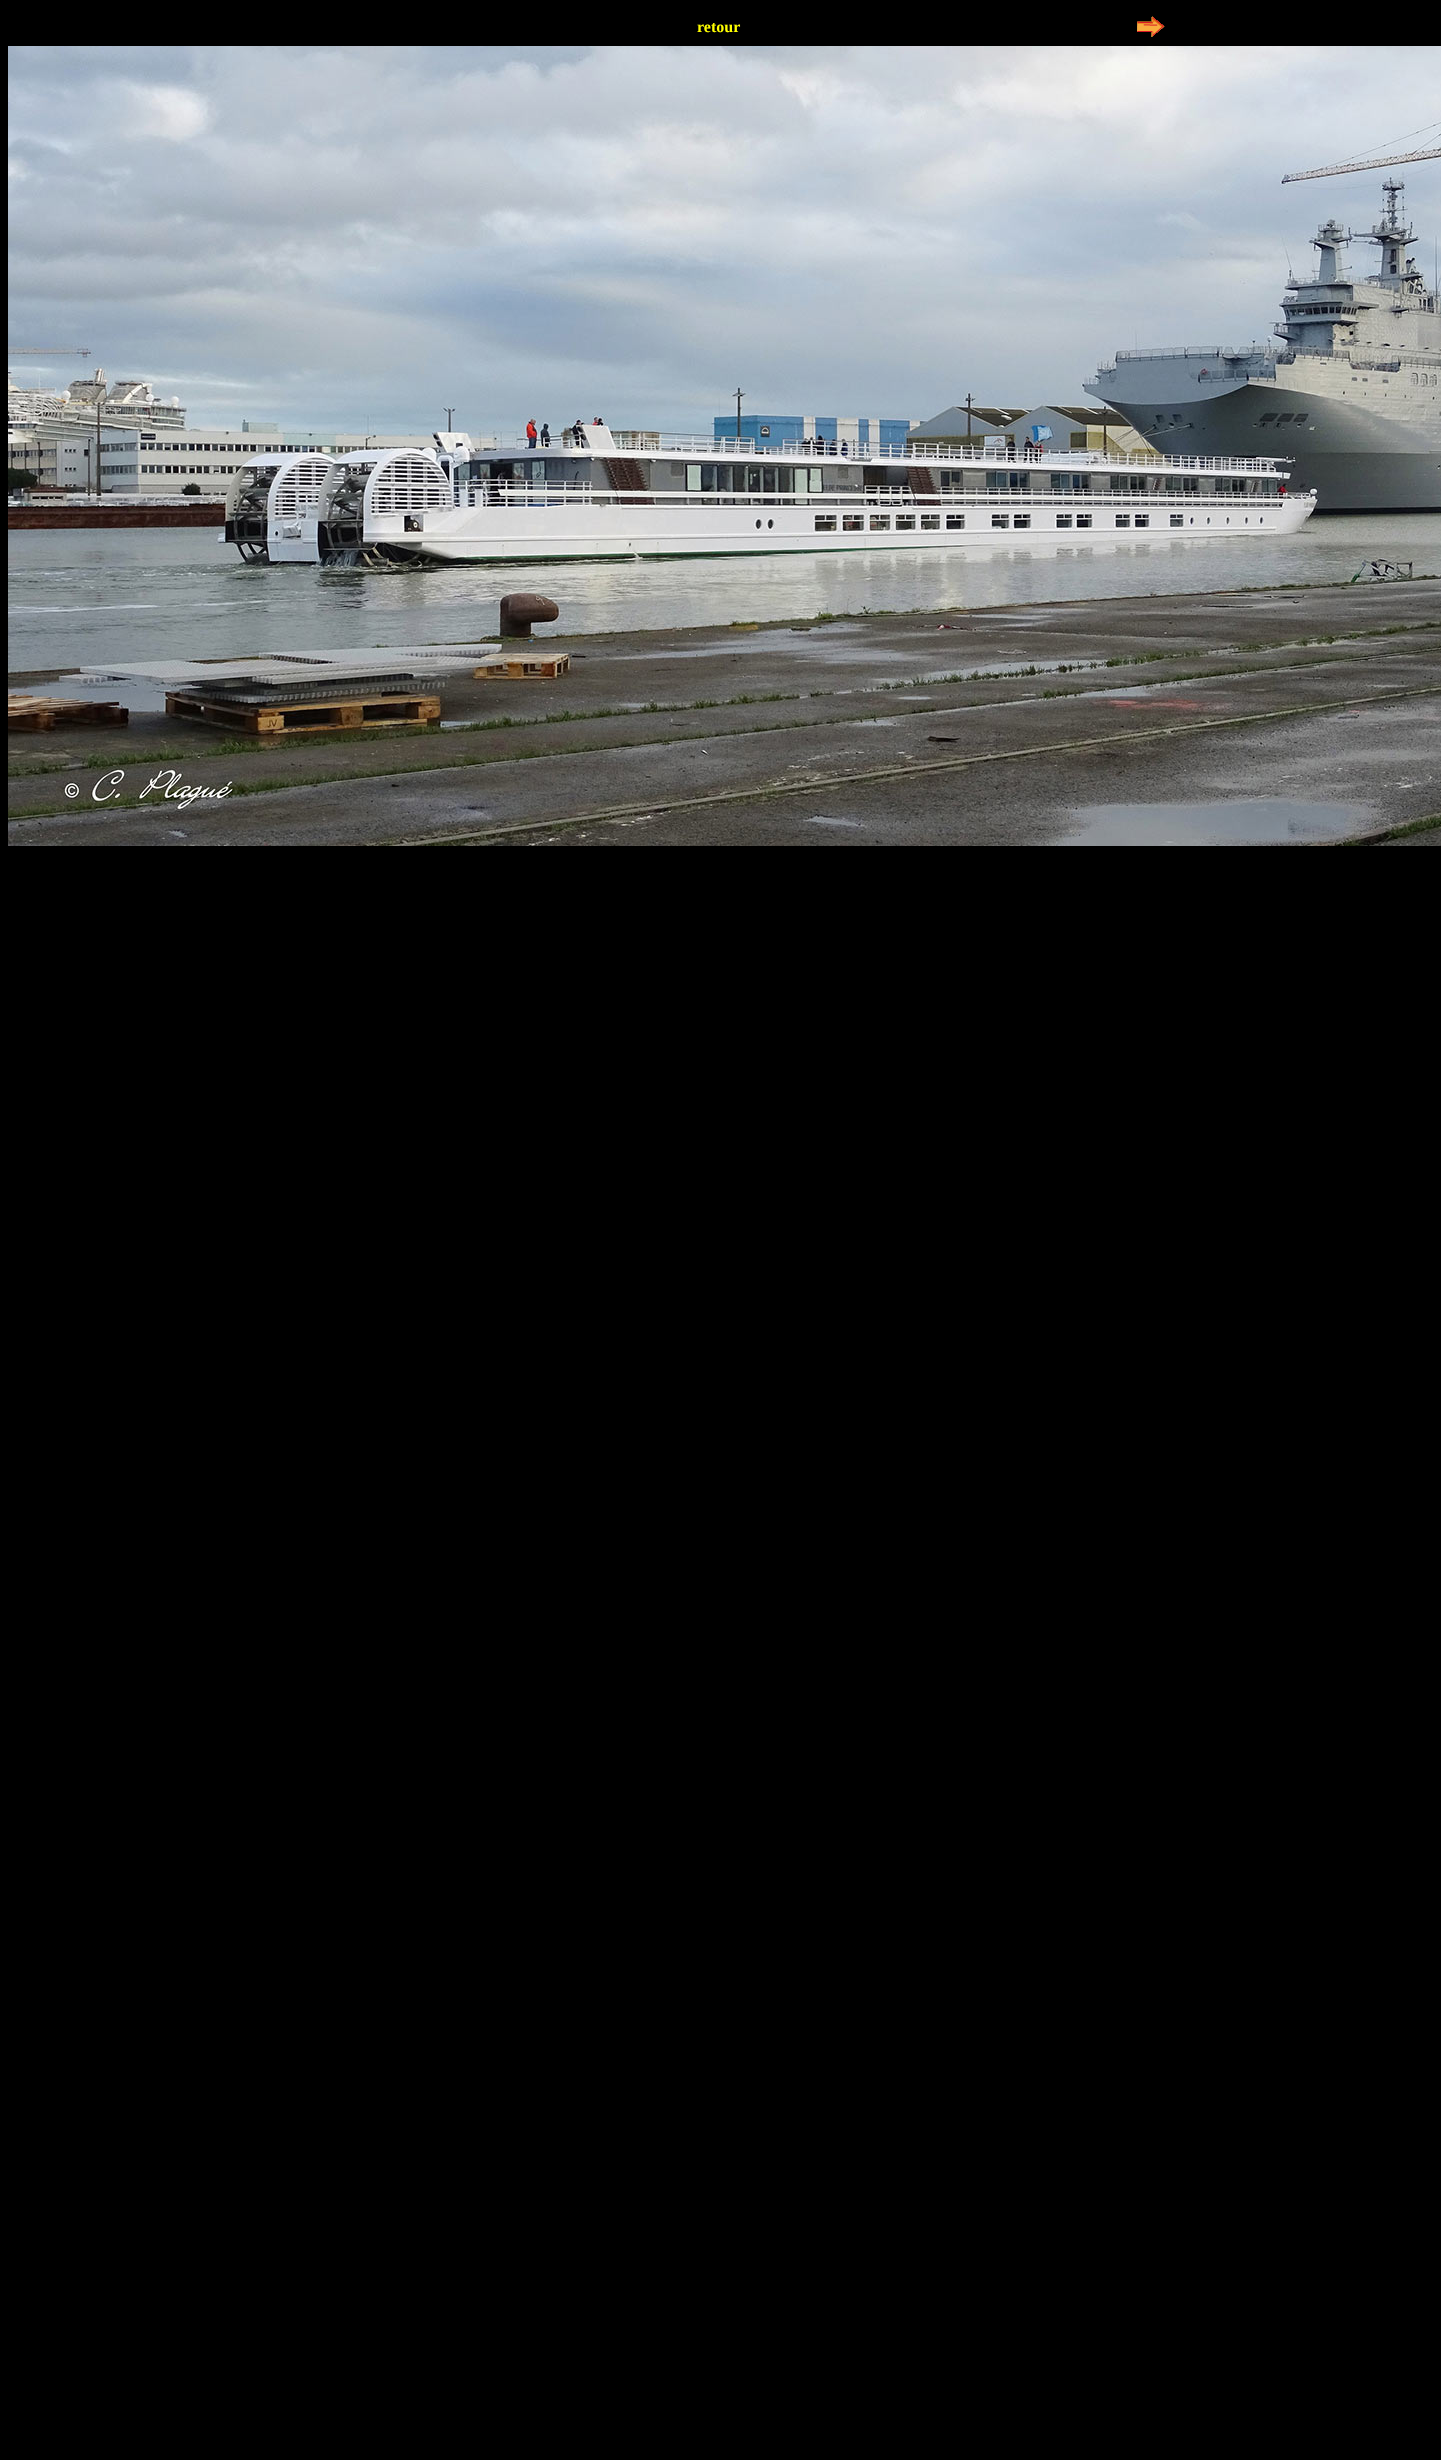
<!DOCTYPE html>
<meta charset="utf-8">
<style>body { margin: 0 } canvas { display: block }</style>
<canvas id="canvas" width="1441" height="2460"></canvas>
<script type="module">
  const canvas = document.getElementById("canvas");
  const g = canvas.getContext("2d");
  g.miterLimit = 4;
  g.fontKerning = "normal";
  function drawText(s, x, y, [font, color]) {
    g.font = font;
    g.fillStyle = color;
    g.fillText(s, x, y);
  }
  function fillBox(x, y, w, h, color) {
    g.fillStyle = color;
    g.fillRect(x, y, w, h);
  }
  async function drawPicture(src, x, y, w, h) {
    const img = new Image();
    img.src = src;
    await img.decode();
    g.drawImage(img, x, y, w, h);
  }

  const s1 = ["bold 16px Liberation Serif", "#FFFF00"];

  fillBox(0, 0, 1441, 2460, "#000000");
  drawText("retour", 697, 32, s1);
  await drawPicture("pic1.png", 1137, 16, 28, 21);
  await drawPicture("pic2.png", 8, 46, 1433, 800);
</script>
